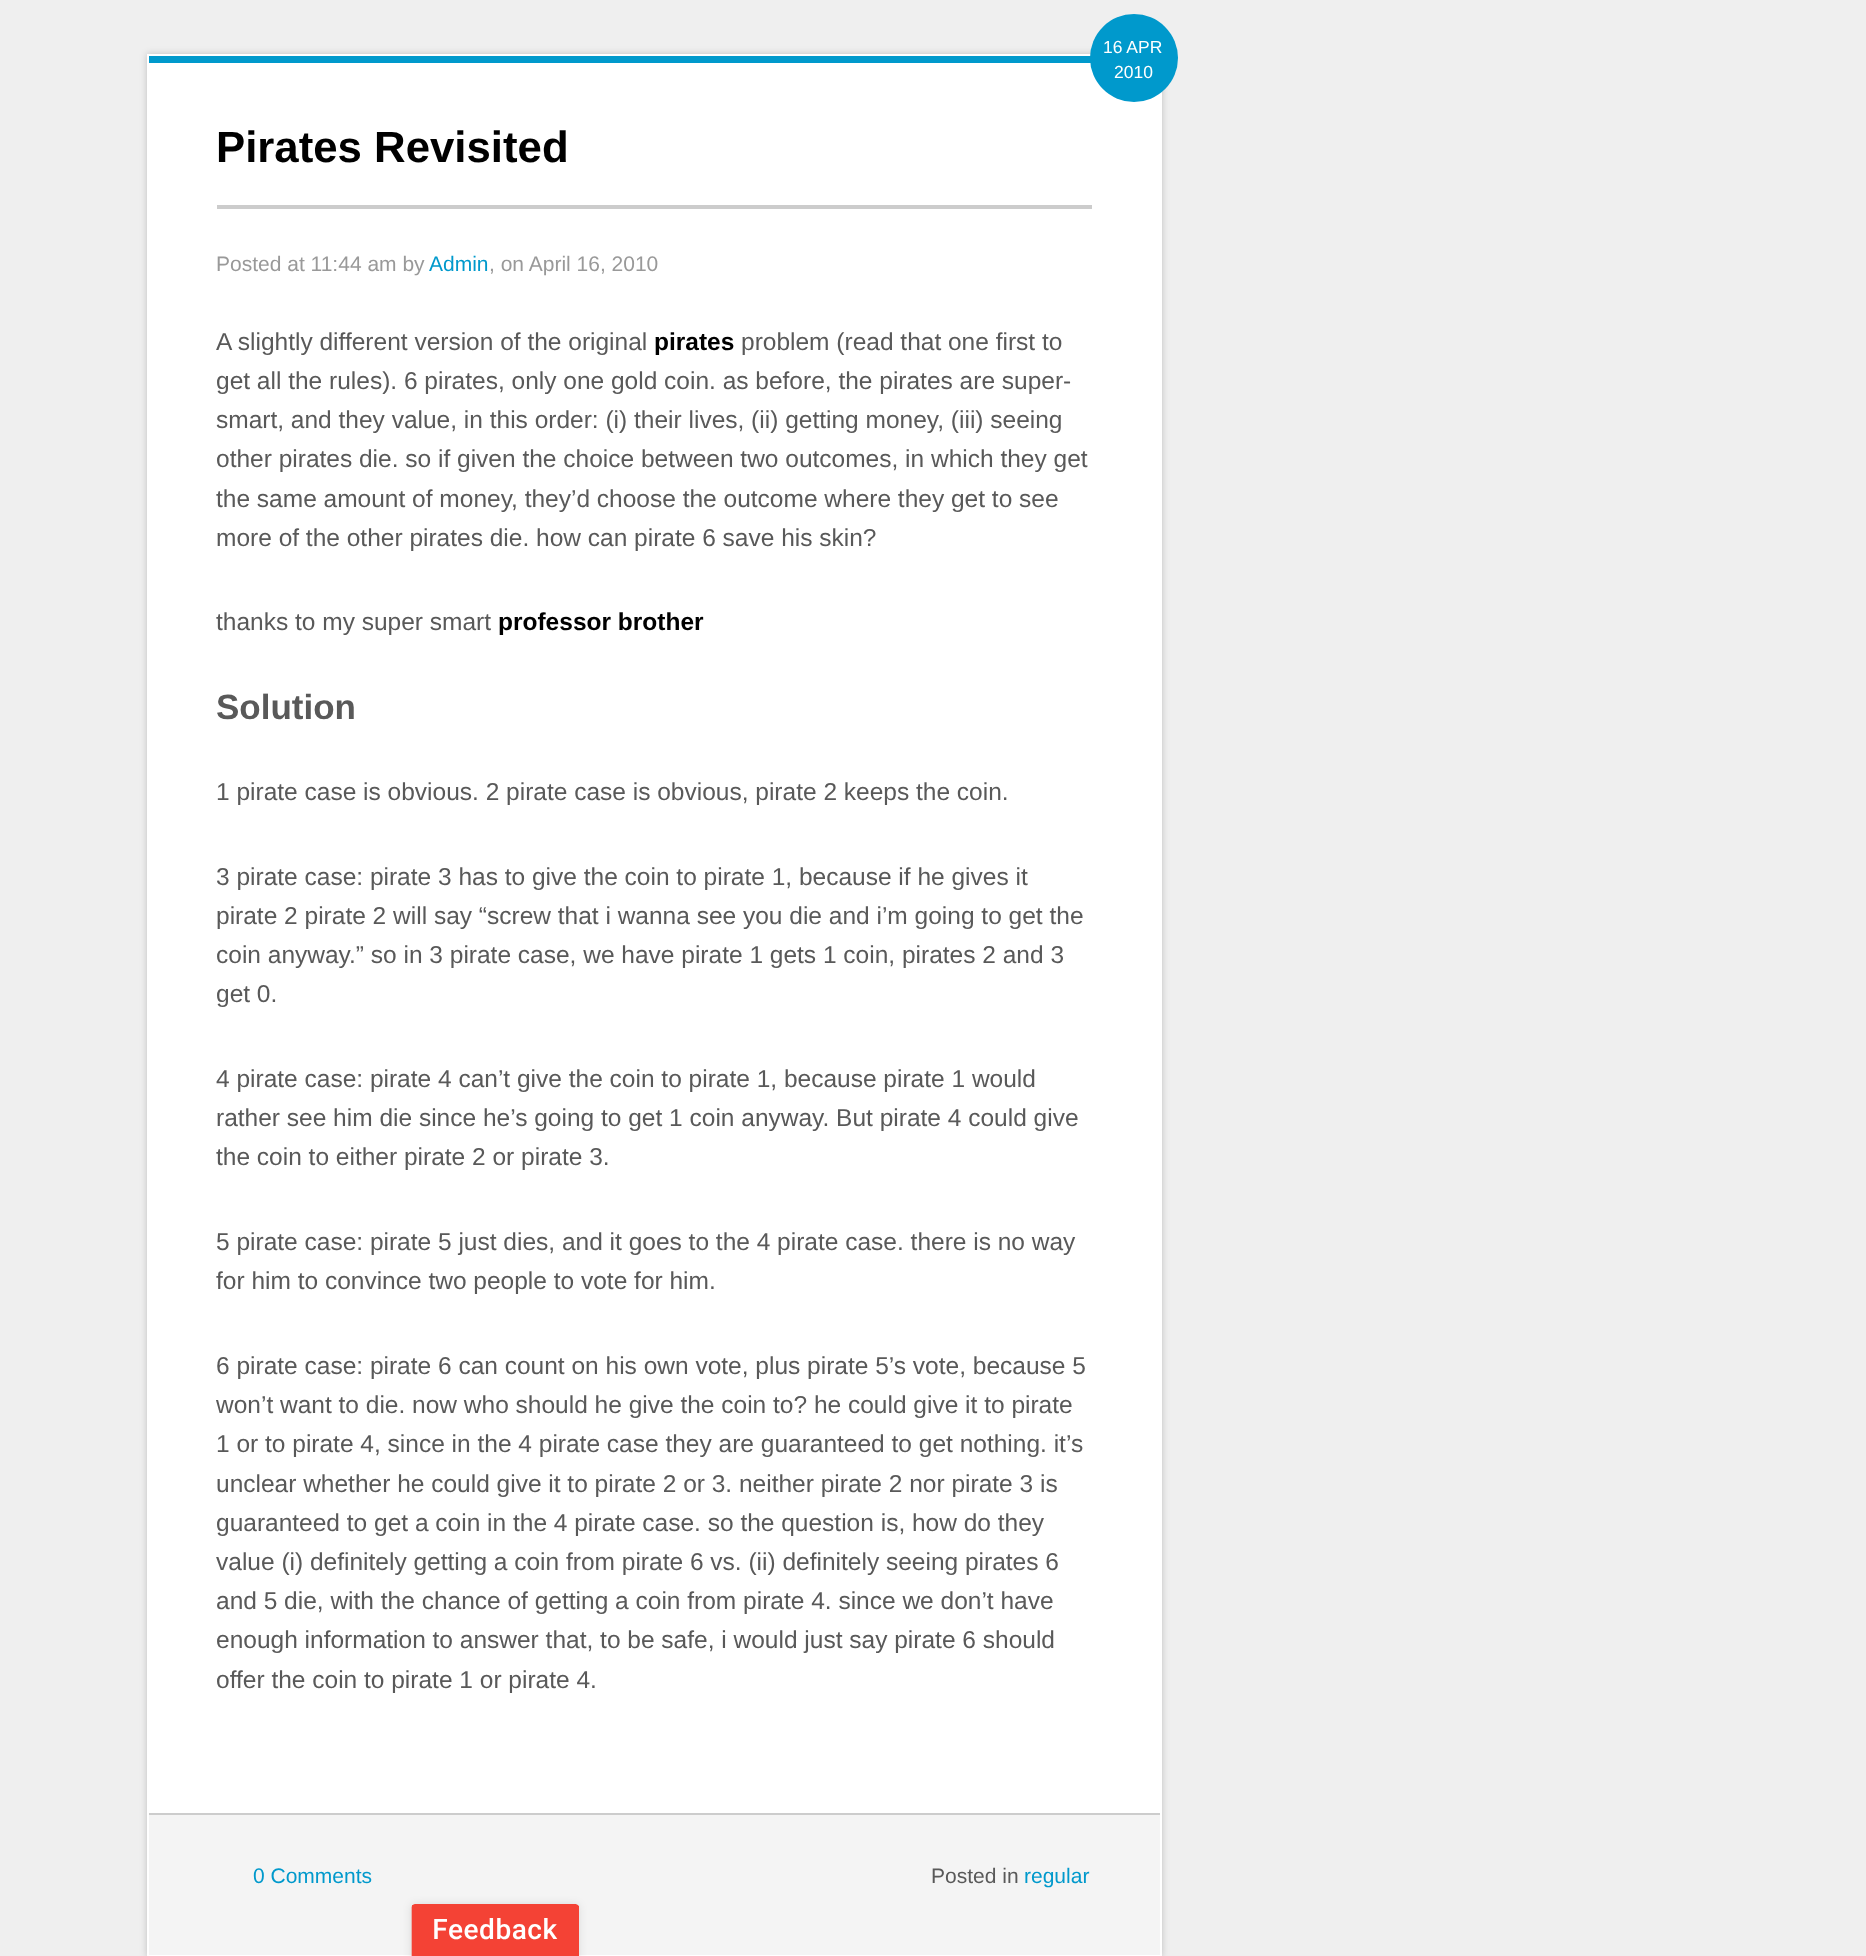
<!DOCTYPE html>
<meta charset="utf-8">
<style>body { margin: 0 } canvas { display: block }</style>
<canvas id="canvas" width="1866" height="1956"></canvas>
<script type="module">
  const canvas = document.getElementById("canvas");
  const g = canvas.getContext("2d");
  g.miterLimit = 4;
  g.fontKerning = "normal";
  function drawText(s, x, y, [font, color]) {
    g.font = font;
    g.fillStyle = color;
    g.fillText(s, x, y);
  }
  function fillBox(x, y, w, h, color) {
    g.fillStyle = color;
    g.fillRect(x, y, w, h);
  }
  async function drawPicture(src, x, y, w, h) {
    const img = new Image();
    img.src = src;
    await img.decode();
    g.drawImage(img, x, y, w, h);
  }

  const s1 = ["17.5px Liberation Sans", "#FFFFFF"];
  const s2 = ["bold 43.75px Liberation Sans", "#000000"];
  const s3 = ["21px Liberation Sans", "#999999"];
  const s4 = ["21px Liberation Sans", "#0099CC"];
  const s5 = ["24.5px Liberation Sans", "#595959"];
  const s6 = ["bold 24.5px Liberation Sans", "#000000"];
  const s7 = ["bold 35px Liberation Sans", "#595959"];
  const s8 = ["21px Liberation Sans", "#595959"];

  fillBox(0, 0, 1866, 1956, "#EFEFEF");
  g.fillStyle = "rgba(0, 0, 0, 0.2)";
  g.filter = "blur(3.5px)";
  g.beginPath();
  g.rect(147, 54, 1015, 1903);
  g.fill();
  g.filter = "none";
  fillBox(147, 54, 1015, 1902, "#FFFFFF");
  fillBox(149, 56, 942, 7, "#0099CC");
  g.beginPath();
  g.arc(1134, 58, 44, 0, Math.PI * 2);
  g.fill();
  drawText("16 APR", 1103, 53, s1);
  drawText("2010", 1114, 78, s1);
  fillBox(217, 205, 875, 4, "#CCCCCC");
  drawText("Pirates Revisited", 216, 162, s2);
  drawText("Posted at 11:44 am by", 216, 271, s3);
  drawText("Admin", 429, 271, s4);
  drawText(", on April 16, 2010", 489, 271, s3);
  drawText("A slightly different version of the original", 216, 350, s5);
  drawText("pirates", 654, 350, s6);
  drawText("problem (read that one first to", 741, 350, s5);
  drawText("get all the rules). 6 pirates, only one gold coin. as before, the pirates are super-", 216, 389, s5);
  drawText("smart, and they value, in this order: (i) their lives, (ii) getting money, (iii) seeing", 216, 428, s5);
  drawText("other pirates die. so if given the choice between two outcomes, in which they get", 216, 467, s5);
  drawText("the same amount of money, they’d choose the outcome where they get to see", 216, 507, s5);
  drawText("more of the other pirates die. how can pirate 6 save his skin?", 216, 546, s5);
  drawText("thanks to my super smart", 216, 630, s5);
  drawText("professor brother", 498, 630, s6);
  drawText("Solution", 216, 719, s7);
  drawText("1 pirate case is obvious. 2 pirate case is obvious, pirate 2 keeps the coin.", 216, 800, s5);
  drawText("3 pirate case: pirate 3 has to give the coin to pirate 1, because if he gives it", 216, 885, s5);
  drawText("pirate 2 pirate 2 will say “screw that i wanna see you die and i’m going to get the", 216, 924, s5);
  drawText("coin anyway.” so in 3 pirate case, we have pirate 1 gets 1 coin, pirates 2 and 3", 216, 963, s5);
  drawText("get 0.", 216, 1002, s5);
  drawText("4 pirate case: pirate 4 can’t give the coin to pirate 1, because pirate 1 would", 216, 1087, s5);
  drawText("rather see him die since he’s going to get 1 coin anyway. But pirate 4 could give", 216, 1126, s5);
  drawText("the coin to either pirate 2 or pirate 3.", 216, 1165, s5);
  drawText("5 pirate case: pirate 5 just dies, and it goes to the 4 pirate case. there is no way", 216, 1250, s5);
  drawText("for him to convince two people to vote for him.", 216, 1289, s5);
  drawText("6 pirate case: pirate 6 can count on his own vote, plus pirate 5’s vote, because 5", 216, 1374, s5);
  drawText("won’t want to die. now who should he give the coin to? he could give it to pirate", 216, 1413, s5);
  drawText("1 or to pirate 4, since in the 4 pirate case they are guaranteed to get nothing. it’s", 216, 1452, s5);
  drawText("unclear whether he could give it to pirate 2 or 3. neither pirate 2 nor pirate 3 is", 216, 1492, s5);
  drawText("guaranteed to get a coin in the 4 pirate case. so the question is, how do they", 216, 1531, s5);
  drawText("value (i) definitely getting a coin from pirate 6 vs. (ii) definitely seeing pirates 6", 216, 1570, s5);
  drawText("and 5 die, with the chance of getting a coin from pirate 4. since we don’t have", 216, 1609, s5);
  drawText("enough information to answer that, to be safe, i would just say pirate 6 should", 216, 1648, s5);
  drawText("offer the coin to pirate 1 or pirate 4.", 216, 1688, s5);
  fillBox(149, 1815, 1011, 140, "#F4F4F4");
  fillBox(149, 1813, 1011, 2, "#CCCCCC");
  drawText("0 Comments", 253, 1883, s4);
  drawText("Posted in", 931, 1883, s8);
  drawText("regular", 1024, 1883, s4);
  g.fillStyle = "rgba(0, 0, 0, 0.1)";
  g.filter = "blur(4.5px)";
  g.beginPath();
  g.roundRect(411, 1904, 168, 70, 4);
  g.fill();
  g.filter = "none";
  await drawPicture("pic1.png", 411, 1904, 168, 52);
</script>
